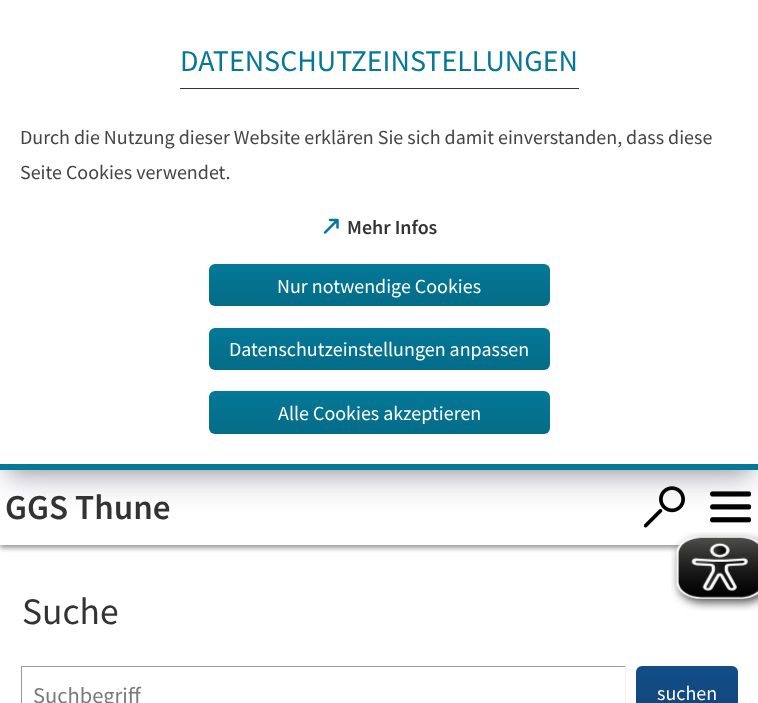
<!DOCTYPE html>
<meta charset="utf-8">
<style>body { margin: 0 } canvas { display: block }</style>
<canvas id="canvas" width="758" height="703"></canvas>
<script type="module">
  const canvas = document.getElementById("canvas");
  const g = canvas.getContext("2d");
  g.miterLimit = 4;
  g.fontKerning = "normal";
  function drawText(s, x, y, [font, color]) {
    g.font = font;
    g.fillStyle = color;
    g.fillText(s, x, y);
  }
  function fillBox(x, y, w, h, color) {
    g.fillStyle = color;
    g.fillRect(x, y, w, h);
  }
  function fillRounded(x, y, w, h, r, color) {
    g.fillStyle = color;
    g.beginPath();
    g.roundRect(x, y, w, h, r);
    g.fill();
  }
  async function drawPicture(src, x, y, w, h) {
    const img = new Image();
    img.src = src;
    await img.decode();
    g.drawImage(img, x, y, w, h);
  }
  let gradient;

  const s1 = ["30px Source Sans Pro", "#047897"];
  const s2 = ["20px Source Sans Pro", "#444444"];
  const s3 = ["600 20px Source Sans Pro", "#333333"];
  const s4 = ["20px Source Sans Pro", "#FFFFFF"];
  const s5 = ["600 35px Source Sans Pro", "#333333"];
  const s6 = ["37.5px Source Sans Pro", "#333333"];
  const s7 = ["22.5px Source Sans Pro", "#7A7A7A"];

  fillBox(0, 0, 758, 703, "#FFFFFF");
  g.save();
  g.beginPath();
  g.rect(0, 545, 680, 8);
  g.clip();
  g.fillStyle = "#999999";
  g.filter = "blur(2.5px)";
  g.beginPath();
  g.rect(0, 473, 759, 75);
  g.fill();
  g.filter = "none";
  g.restore();
  await drawPicture("pic2.png", 644, 486, 41, 42);
  await drawPicture("pic3.png", 710, 491, 41, 32);
  g.fillStyle = "rgba(0, 0, 0, 0.3)";
  g.filter = "blur(10px)";
  g.beginPath();
  g.rect(10, 20, 739, 450);
  g.fill();
  g.filter = "none";
  g.fillStyle = "rgba(50, 50, 93, 0.25)";
  g.filter = "blur(17px)";
  g.beginPath();
  g.rect(6, 23, 747, 457);
  g.fill();
  g.filter = "none";
  fillBox(0, 0, 758, 464, "#FFFFFF");
  fillBox(0, 464, 758, 6, "#047897");
  fillBox(180, 88, 399, 1, "#333333");
  drawText("DATENSCHUTZEINSTELLUNGEN", 180, 71, s1);
  drawText("Durch die Nutzung dieser Website erklären Sie sich damit einverstanden, dass diese", 20, 144, s2);
  drawText("Seite Cookies verwendet.", 20, 179, s2);
  await drawPicture("pic1.png", 323, 218, 16, 16);
  drawText("Mehr Infos", 347, 234, s3);
  fillRounded(209, 264, 341, 42, 6, "#047897");
  gradient = g.createLinearGradient(379, 264, 379, 306);
  gradient.addColorStop(0, "rgba(0, 0, 0, 0)");
  gradient.addColorStop(0.01, "rgba(0, 0, 0, 0)");
  gradient.addColorStop(1, "rgba(0, 0, 0, 0.1)");
  g.fillStyle = gradient;
  g.beginPath();
  g.roundRect(209, 264, 341, 42, 6);
  g.fill();
  drawText("Nur notwendige Cookies", 277, 293, s4);
  fillRounded(209, 328, 341, 42, 6, "#047897");
  gradient = g.createLinearGradient(379, 328, 379, 370);
  gradient.addColorStop(0, "rgba(0, 0, 0, 0)");
  gradient.addColorStop(0.01, "rgba(0, 0, 0, 0)");
  gradient.addColorStop(1, "rgba(0, 0, 0, 0.1)");
  g.fillStyle = gradient;
  g.beginPath();
  g.roundRect(209, 328, 341, 42, 6);
  g.fill();
  drawText("Datenschutzeinstellungen anpassen", 229, 356, s4);
  fillRounded(209, 391, 341, 43, 6, "#047897");
  gradient = g.createLinearGradient(379, 391, 379, 434);
  gradient.addColorStop(0, "rgba(0, 0, 0, 0)");
  gradient.addColorStop(0.01, "rgba(0, 0, 0, 0)");
  gradient.addColorStop(1, "rgba(0, 0, 0, 0.1)");
  g.fillStyle = gradient;
  g.beginPath();
  g.roundRect(209, 391, 341, 43, 6);
  g.fill();
  drawText("Alle Cookies akzeptieren", 278, 420, s4);
  drawText("GGS Thune", 5, 519, s5);
  await drawPicture("pic4.png", 671, 532, 87, 79);
  drawText("Suche", 22, 624, s6);
  fillBox(21, 666, 605, 1, "#999999");
  fillBox(625, 666, 1, 37, "#F0F0F0");
  fillBox(21, 666, 1, 37, "#999999");
  drawText("Suchbegriff", 33, 703, s7);
  fillRounded(636, 666, 102, 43, 6, "#134D88");
  gradient = g.createLinearGradient(687, 666, 687, 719);
  gradient.addColorStop(0, "rgba(0, 0, 0, 0)");
  gradient.addColorStop(0.01, "rgba(0, 0, 0, 0)");
  gradient.addColorStop(1, "rgba(0, 0, 0, 0.1)");
  g.fillStyle = gradient;
  g.fillRect(636, 678, 102, 25);
  drawText("suchen", 657, 700, s4);
</script>
